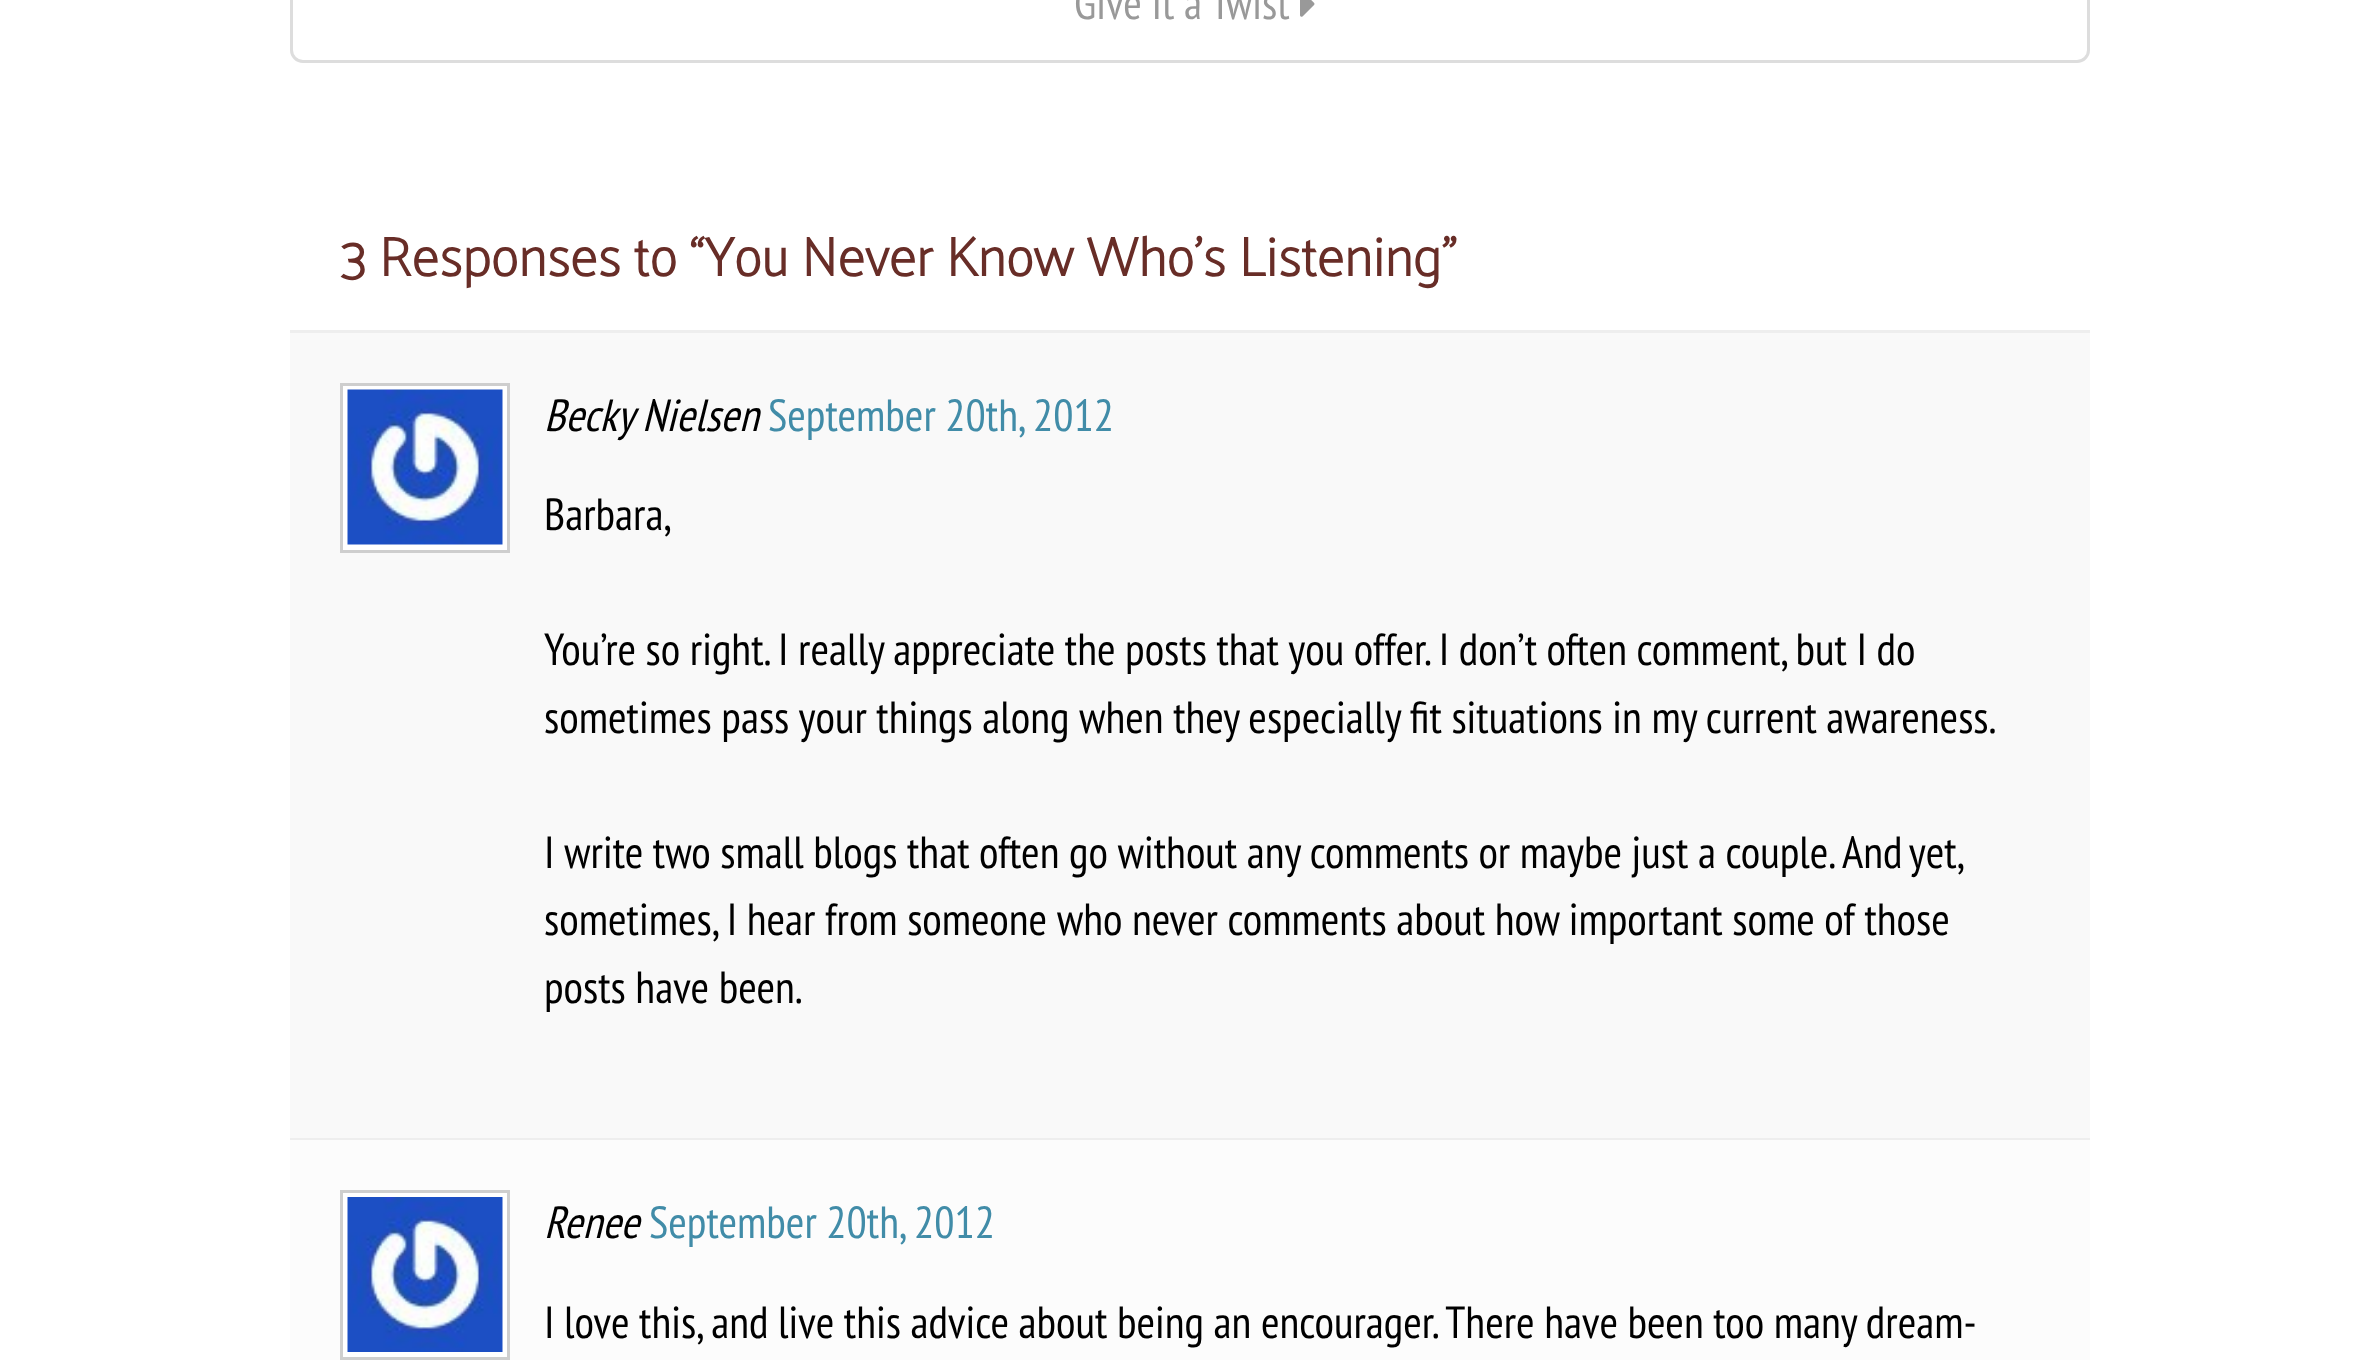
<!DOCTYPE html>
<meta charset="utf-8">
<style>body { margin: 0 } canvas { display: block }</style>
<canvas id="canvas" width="2378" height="1360"></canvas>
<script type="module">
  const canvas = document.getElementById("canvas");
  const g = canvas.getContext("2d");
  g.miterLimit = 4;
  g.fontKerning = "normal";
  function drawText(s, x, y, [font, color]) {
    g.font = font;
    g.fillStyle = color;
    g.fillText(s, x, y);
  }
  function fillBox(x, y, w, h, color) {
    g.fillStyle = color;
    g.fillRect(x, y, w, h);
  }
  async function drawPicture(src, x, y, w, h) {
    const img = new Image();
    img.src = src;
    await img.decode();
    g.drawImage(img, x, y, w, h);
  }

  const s1 = ["45px PT Sans Narrow", "#999999"];
  const s2 = ["bold 55px Palanquin", "#682D27"];
  const s3 = ["italic 45px PT Sans Narrow", "#000000"];
  const s4 = ["45px PT Sans Narrow", "#418CA8"];
  const s5 = ["45px PT Sans Narrow", "#000000"];

  fillBox(0, 0, 2378, 1360, "#FFFFFF");
  g.beginPath();
  g.roundRect(291.5, -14.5, 1797, 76, 11.5);
  g.strokeStyle = "#DDDDDD";
  g.lineWidth = 3;
  g.stroke();
  drawText("Give It a Twist", 1074, 19, s1);
  await drawPicture("pic1.png", 1300, 0, 15, 17);
  fillBox(290, 330, 1800, 3, "#EEEEEE");
  drawText("3 Responses to “You Never Know Who’s Listening”", 340, 276, s2);
  fillBox(290, 333, 1800, 805, "#F9F9F9");
  fillBox(290, 1138, 1800, 2, "#EEEEEE");
  g.fillStyle = "#FFFFFF";
  g.beginPath();
  g.rect(341.5, 384.5, 167, 167);
  g.fill();
  g.strokeStyle = "#CECECE";
  g.stroke();
  await drawPicture("pic2.png", 347, 389, 156, 156);
  drawText("Becky Nielsen", 544, 431, s3);
  drawText("September 20th, 2012", 768, 431, s4);
  drawText("Barbara,", 544, 530, s5);
  drawText("You’re so right. I really appreciate the posts that you offer. I don’t often comment, but I do", 544, 665, s5);
  drawText("sometimes pass your things along when they especially fit situations in my current awareness.", 544, 733, s5);
  drawText("I write two small blogs that often go without any comments or maybe just a couple.", 544, 868, s5);
  g.wordSpacing = "-3px";
  drawText("And yet,", 1842, 868, s5);
  g.wordSpacing = "0px";
  drawText("sometimes, I hear from someone who never comments about how important some of those", 544, 935, s5);
  drawText("posts have been.", 544, 1003, s5);
  fillBox(290, 1140, 1800, 220, "#FCFCFC");
  g.fillStyle = "#FFFFFF";
  g.beginPath();
  g.rect(341.5, 1191.5, 167, 167);
  g.fill();
  g.stroke();
  await drawPicture("pic3.png", 347, 1197, 156, 155);
  drawText("Renee", 544, 1238, s3);
  drawText("September 20th, 2012", 649, 1238, s4);
  drawText("I love this, and live this advice about being an encourager. There have been too many dream-", 544, 1338, s5);
</script>
